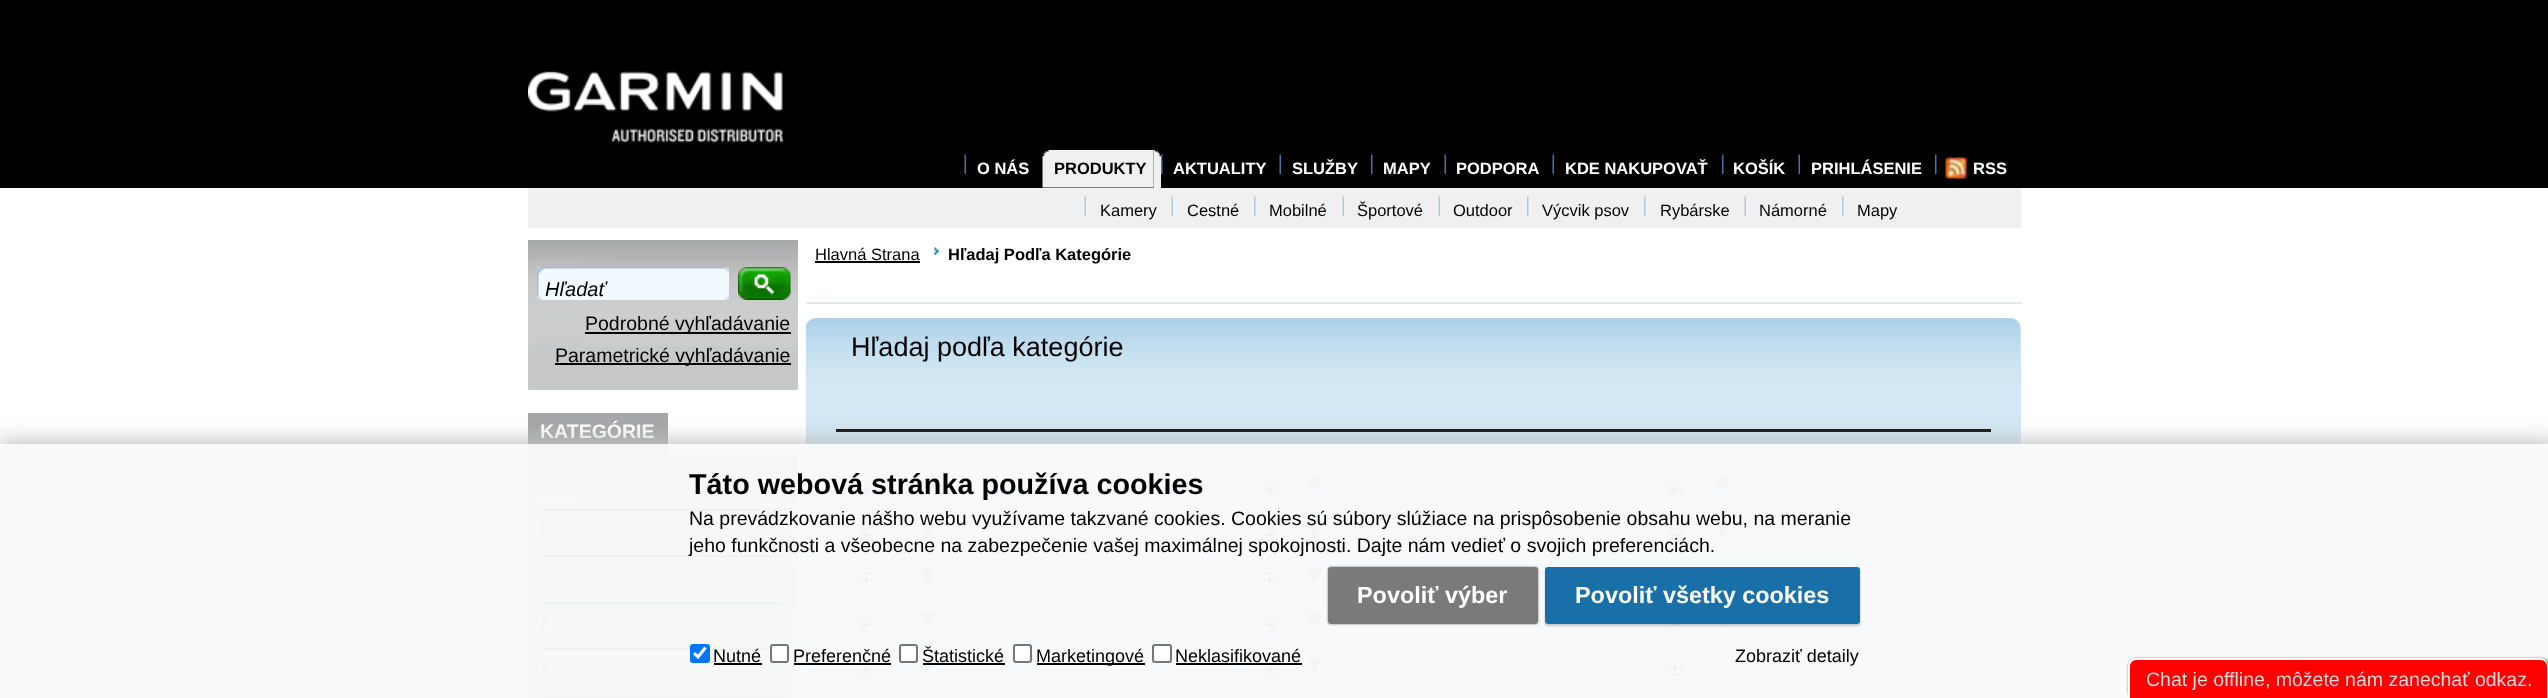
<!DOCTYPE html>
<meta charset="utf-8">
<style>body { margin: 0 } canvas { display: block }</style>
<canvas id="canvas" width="2548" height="698"></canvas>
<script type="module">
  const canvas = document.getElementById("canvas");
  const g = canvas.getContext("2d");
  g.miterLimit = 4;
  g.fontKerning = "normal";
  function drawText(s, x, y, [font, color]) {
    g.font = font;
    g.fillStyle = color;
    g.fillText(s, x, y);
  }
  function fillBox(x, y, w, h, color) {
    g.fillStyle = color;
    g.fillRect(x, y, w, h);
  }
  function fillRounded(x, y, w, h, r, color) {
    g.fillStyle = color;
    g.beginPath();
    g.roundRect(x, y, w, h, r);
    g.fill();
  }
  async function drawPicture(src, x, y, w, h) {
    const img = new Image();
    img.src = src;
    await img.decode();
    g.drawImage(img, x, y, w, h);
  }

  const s1 = ["bold 16.5px Liberation Sans", "#FFFFFF"];
  const s2 = ["bold 16.5px Liberation Sans", "#010102"];
  const s3 = ["16.5px Liberation Sans", "#010102"];
  const s4 = ["italic 20px Liberation Sans", "#010102"];
  const s5 = ["19.5px Liberation Sans", "#010102"];
  const s6 = ["bold 19.5px Liberation Sans", "#FFFFFF"];
  const s7 = ["27px Liberation Sans", "#010102"];
  const s8 = ["bold 28.75px Liberation Sans", "#010102"];
  const s9 = ["bold 23.4px Liberation Sans", "#FFFFFF"];
  const s10 = ["18px Liberation Sans", "#010102"];
  const s11 = ["19.5px Liberation Sans", "#DDDDDD"];

  fillBox(0, 0, 2548, 698, "#FFFFFF");
  fillBox(0, 444, 2548, 254, "#FAFAFA");
  fillBox(0, 0, 2548, 188, "#000000");
  await drawPicture("pic1.png", 528, 71, 255, 72);
  await drawPicture("pic2.png", 964, 154, 2, 20);
  drawText("O NÁS", 977, 174, s1);
  await drawPicture("pic3.png", 1153, 150, 8, 38);
  await drawPicture("pic4.png", 1042, 150, 112, 38);
  drawText("PRODUKTY", 1054, 174, s2);
  await drawPicture("pic5.png", 1161, 154, 2, 20);
  drawText("AKTUALITY", 1173, 174, s1);
  await drawPicture("pic2.png", 1279, 154, 2, 20);
  drawText("SLUŽBY", 1292, 174, s1);
  await drawPicture("pic5.png", 1371, 154, 2, 20);
  drawText("MAPY", 1383, 174, s1);
  await drawPicture("pic2.png", 1444, 154, 2, 20);
  drawText("PODPORA", 1456, 174, s1);
  await drawPicture("pic2.png", 1552, 154, 2, 20);
  drawText("KDE NAKUPOVAŤ", 1565, 174, s1);
  await drawPicture("pic5.png", 1722, 154, 2, 20);
  drawText("KOŠÍK", 1733, 174, s1);
  await drawPicture("pic2.png", 1798, 154, 2, 20);
  drawText("PRIHLÁSENIE", 1811, 174, s1);
  await drawPicture("pic5.png", 1935, 154, 2, 20);
  await drawPicture("pic6.png", 1945, 157, 22, 22);
  drawText("RSS", 1973, 174, s1);
  fillBox(528, 188, 1493, 40, "#F0F0F0");
  await drawPicture("pic7.png", 1084, 196, 2, 20);
  drawText("Kamery", 1100, 216, s3);
  await drawPicture("pic7.png", 1171, 196, 2, 20);
  drawText("Cestné", 1187, 216, s3);
  await drawPicture("pic8.png", 1254, 196, 2, 20);
  drawText("Mobilné", 1269, 216, s3);
  await drawPicture("pic7.png", 1342, 196, 2, 20);
  drawText("Športové", 1357, 216, s3);
  await drawPicture("pic7.png", 1438, 196, 2, 20);
  drawText("Outdoor", 1453, 216, s3);
  await drawPicture("pic8.png", 1527, 196, 2, 20);
  drawText("Výcvik psov", 1542, 216, s3);
  await drawPicture("pic8.png", 1644, 196, 2, 20);
  drawText("Rybárske", 1660, 216, s3);
  await drawPicture("pic7.png", 1744, 196, 2, 20);
  drawText("Námorné", 1759, 216, s3);
  await drawPicture("pic8.png", 1842, 196, 2, 20);
  drawText("Mapy", 1857, 216, s3);
  await drawPicture("pic9.png", 528, 240, 270, 150);
  await drawPicture("pic10.png", 537, 267, 192, 33);
  drawText("Hľadať", 545, 296, s4);
  await drawPicture("pic11.png", 738, 267, 53, 33);
  fillBox(585, 332, 206, 2, "#020101");
  drawText("Podrobné vyhľadávanie", 585, 330, s5);
  fillBox(555, 363, 236, 2, "#020101");
  drawText("Parametrické vyhľadávanie", 555, 362, s5);
  fillBox(528, 413, 140, 31, "#A6A7A8");
  fillBox(528, 444, 140, 12, "#F6F6F6");
  drawText("KATEGÓRIE", 540, 438, s6);
  fillBox(528, 606, 270, 92, "#F7F8F8");
  await drawPicture("pic12.png", 528, 456, 270, 150);
  fillBox(543, 509, 240, 2, "#F0F2F4");
  await drawPicture("pic13.png", 543, 477, 6, 11);
  fillBox(543, 555, 240, 2, "#F0F2F4");
  await drawPicture("pic14.png", 543, 523, 6, 11);
  fillBox(543, 602, 240, 2, "#F0F2F4");
  await drawPicture("pic15.png", 543, 570, 6, 11);
  fillBox(543, 648, 227, 2, "#F0F2F4");
  await drawPicture("pic16.png", 543, 616, 6, 11);
  fillBox(543, 695, 240, 2, "#F0F2F4");
  await drawPicture("pic15.png", 543, 663, 6, 11);
  fillBox(806, 302, 1215, 2, "#E4E8EA");
  drawText("Hlavná Strana", 815, 260, s3);
  fillBox(815, 261, 105, 2, "#010102");
  await drawPicture("pic17.png", 934, 247, 5, 8);
  drawText("Hľadaj Podľa Kategórie", 948, 260, s2);
  fillRounded(806, 318, 1215, 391, 11, "#D1E6F3");
  fillBox(806, 444, 1215, 254, "#F8F9FA");
  await drawPicture("pic18.png", 805, 318, 1215, 108);
  fillBox(836, 429, 1155, 3, "#010201");
  drawText("Hľadaj podľa kategórie", 851, 356, s7);
  await drawPicture("pic19.png", 859, 482, 15, 15);
  await drawPicture("pic20.png", 920, 478, 15, 16);
  await drawPicture("pic19.png", 859, 527, 15, 15);
  await drawPicture("pic20.png", 920, 523, 15, 16);
  await drawPicture("pic19.png", 859, 572, 15, 15);
  await drawPicture("pic20.png", 920, 568, 15, 16);
  await drawPicture("pic19.png", 859, 617, 15, 15);
  await drawPicture("pic20.png", 920, 613, 15, 16);
  await drawPicture("pic19.png", 859, 662, 15, 15);
  await drawPicture("pic20.png", 920, 658, 15, 16);
  await drawPicture("pic21.png", 1262, 482, 15, 15);
  await drawPicture("pic22.png", 1307, 478, 15, 16);
  await drawPicture("pic21.png", 1262, 527, 15, 15);
  await drawPicture("pic22.png", 1307, 523, 15, 16);
  await drawPicture("pic21.png", 1262, 572, 15, 15);
  await drawPicture("pic22.png", 1307, 568, 15, 16);
  await drawPicture("pic21.png", 1262, 617, 15, 15);
  await drawPicture("pic22.png", 1307, 613, 15, 16);
  await drawPicture("pic21.png", 1262, 662, 15, 15);
  await drawPicture("pic22.png", 1307, 658, 15, 16);
  await drawPicture("pic21.png", 1667, 482, 15, 15);
  await drawPicture("pic20.png", 1715, 478, 15, 16);
  await drawPicture("pic21.png", 1667, 527, 15, 15);
  await drawPicture("pic20.png", 1715, 523, 15, 16);
  await drawPicture("pic21.png", 1667, 572, 15, 15);
  await drawPicture("pic20.png", 1715, 568, 15, 16);
  await drawPicture("pic21.png", 1667, 617, 15, 15);
  await drawPicture("pic20.png", 1715, 613, 15, 16);
  await drawPicture("pic23.png", 1667, 661, 15, 15);
  g.save();
  g.beginPath();
  g.rect(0, 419, 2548, 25);
  g.clip();
  g.fillStyle = "#C0C0C0";
  g.filter = "blur(10.5px)";
  g.beginPath();
  g.rect(-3, 441, 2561, 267);
  g.fill();
  g.filter = "none";
  g.restore();
  drawText("Táto webová stránka používa cookies", 689, 494, s8);
  drawText("Na prevádzkovanie nášho webu využívame takzvané cookies. Cookies sú súbory slúžiace na prispôsobenie obsahu webu, na meranie", 689, 525, s5);
  drawText("jeho funkčnosti a všeobecne na zabezpečenie vašej maximálnej spokojnosti. Dajte nám vedieť o svojich preferenciách.", 689, 552, s5);
  g.save();
  g.beginPath();
  g.moveTo(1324, 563);
  g.lineTo(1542, 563);
  g.lineTo(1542, 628);
  g.lineTo(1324, 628);
  g.closePath();
  g.moveTo(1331, 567);
  g.lineTo(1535, 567);
  g.bezierCurveTo(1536.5, 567, 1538, 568.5, 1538, 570);
  g.lineTo(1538, 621);
  g.bezierCurveTo(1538, 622.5, 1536.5, 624, 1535, 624);
  g.lineTo(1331, 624);
  g.bezierCurveTo(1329.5, 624, 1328, 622.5, 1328, 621);
  g.lineTo(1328, 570);
  g.bezierCurveTo(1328, 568.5, 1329.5, 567, 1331, 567);
  g.closePath();
  g.clip("evenodd");
  g.fillStyle = "rgba(90, 90, 90, 0.8)";
  g.filter = "blur(1px)";
  g.beginPath();
  g.roundRect(1328, 567, 210, 57, 3);
  g.fill();
  g.filter = "none";
  g.restore();
  fillRounded(1328, 567, 210, 57, 3, "rgba(90, 90, 90, 0.8)");
  drawText("Povoliť výber", 1357, 603, s9);
  g.save();
  g.beginPath();
  g.moveTo(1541, 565);
  g.lineTo(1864, 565);
  g.lineTo(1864, 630);
  g.lineTo(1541, 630);
  g.closePath();
  g.moveTo(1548, 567);
  g.lineTo(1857, 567);
  g.bezierCurveTo(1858.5, 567, 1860, 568.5, 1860, 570);
  g.lineTo(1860, 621);
  g.bezierCurveTo(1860, 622.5, 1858.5, 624, 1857, 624);
  g.lineTo(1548, 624);
  g.bezierCurveTo(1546.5, 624, 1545, 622.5, 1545, 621);
  g.lineTo(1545, 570);
  g.bezierCurveTo(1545, 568.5, 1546.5, 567, 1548, 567);
  g.closePath();
  g.clip("evenodd");
  g.fillStyle = "rgba(0, 0, 0, 0.2)";
  g.filter = "blur(1px)";
  g.beginPath();
  g.roundRect(1545, 569, 315, 57, 3);
  g.fill();
  g.filter = "none";
  g.restore();
  fillRounded(1545, 567, 315, 57, 3, "rgba(0, 96, 159, 0.9)");
  drawText("Povoliť všetky cookies", 1575, 603, s9);
  fillRounded(690, 644, 20, 19, 3, "#0075FF");
  g.beginPath();
  g.moveTo(694, 653);
  g.lineTo(698, 657);
  g.lineTo(705.5, 647.5);
  g.strokeStyle = "#FFFFFF";
  g.lineWidth = 3.1;
  g.stroke();
  drawText("Nutné", 713, 662, s10);
  fillBox(714, 663, 48, 2, "#010101");
  g.fillStyle = "#FFFFFF";
  g.beginPath();
  g.roundRect(771, 645, 17, 17, 2);
  g.fill();
  g.strokeStyle = "#767676";
  g.lineWidth = 2;
  g.stroke();
  drawText("Preferenčné", 793, 662, s10);
  fillBox(794, 663, 97, 2, "#010101");
  g.fillStyle = "#FFFFFF";
  g.beginPath();
  g.roundRect(900, 645, 17, 17, 2);
  g.fill();
  g.stroke();
  drawText("Štatistické", 922, 662, s10);
  fillBox(923, 663, 82, 2, "#010101");
  g.fillStyle = "#FFFFFF";
  g.beginPath();
  g.roundRect(1014, 645, 17, 17, 2);
  g.fill();
  g.stroke();
  fillBox(1037, 663, 108, 2, "#010101");
  drawText("Marketingové", 1036, 662, s10);
  g.fillStyle = "#FFFFFF";
  g.beginPath();
  g.roundRect(1153, 645, 18, 17, 2);
  g.fill();
  g.stroke();
  drawText("Neklasifikované", 1175, 662, s10);
  fillBox(1176, 663, 126, 2, "#010101");
  drawText("Zobraziť detaily", 1735, 662, s10);
  g.fillStyle = "#000000";
  g.filter = "blur(1.5px)";
  g.beginPath();
  g.roundRect(2129, 659, 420, 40, 8);
  g.fill();
  g.filter = "none";
  g.fillStyle = "#FF0000";
  g.beginPath();
  g.moveTo(2137, 659);
  g.lineTo(2541, 659);
  g.bezierCurveTo(2545.5, 659, 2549, 662.5, 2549, 667);
  g.lineTo(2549, 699);
  g.lineTo(2129, 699);
  g.lineTo(2129, 667);
  g.bezierCurveTo(2129, 662.5, 2132.5, 659, 2137, 659);
  g.closePath();
  g.fill();
  g.fillStyle = "#FFFFFF";
  g.beginPath();
  g.moveTo(2136, 658);
  g.lineTo(2541, 658);
  g.bezierCurveTo(2545, 658, 2548, 662, 2548, 666);
  g.lineTo(2548, 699);
  g.lineTo(2128, 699);
  g.lineTo(2128, 666);
  g.bezierCurveTo(2128, 662, 2132, 658, 2136, 658);
  g.closePath();
  g.moveTo(2136, 660);
  g.lineTo(2541, 660);
  g.bezierCurveTo(2544, 660, 2547, 663, 2547, 666);
  g.lineTo(2547, 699);
  g.lineTo(2130, 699);
  g.lineTo(2130, 666);
  g.bezierCurveTo(2130, 663, 2133, 660, 2136, 660);
  g.closePath();
  g.fill("evenodd");
  drawText("Chat je offline, môžete nám zanechať odkaz.", 2146, 686, s11);
</script>
